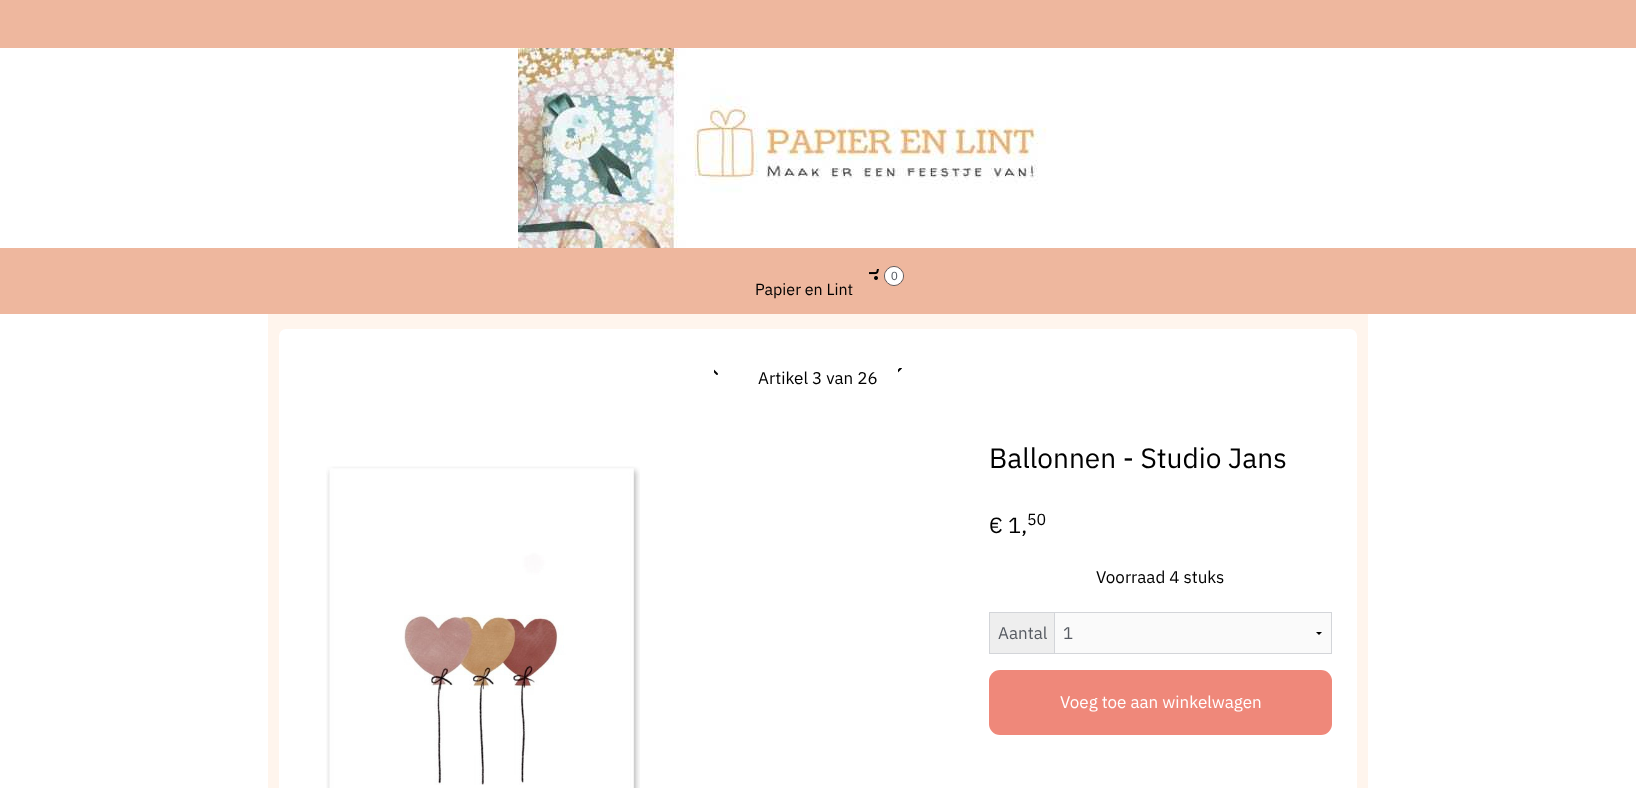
<!DOCTYPE html>
<meta charset="utf-8">
<style>body { margin: 0 } canvas { display: block }</style>
<canvas id="canvas" width="1636" height="788"></canvas>
<script type="module">
  const canvas = document.getElementById("canvas");
  const g = canvas.getContext("2d");
  g.miterLimit = 4;
  g.fontKerning = "normal";
  function drawText(s, x, y, [font, color]) {
    g.font = font;
    g.fillStyle = color;
    g.fillText(s, x, y);
  }
  function fillBox(x, y, w, h, color) {
    g.fillStyle = color;
    g.fillRect(x, y, w, h);
  }
  function fillRounded(x, y, w, h, r, color) {
    g.fillStyle = color;
    g.beginPath();
    g.roundRect(x, y, w, h, r);
    g.fill();
  }
  async function drawPicture(src, x, y, w, h) {
    const img = new Image();
    img.src = src;
    await img.decode();
    g.drawImage(img, x, y, w, h);
  }

  const s1 = ["12px Liberation Sans", "#575B62"];
  const s2 = ["16px IBM Plex Sans", "#000000"];
  const s3 = ["17px IBM Plex Sans", "#000000"];
  const s4 = ["28px IBM Plex Sans", "#000000"];
  const s5 = ["22px IBM Plex Sans", "#000000"];
  const s6 = ["17px IBM Plex Sans", "#575B62"];
  const s7 = ["17px IBM Plex Sans", "#FFFFFF"];

  fillBox(0, 0, 1636, 788, "#FFFFFF");
  fillBox(0, 0, 1636, 48, "#EEB79E");
  await drawPicture("pic1.png", 518, 48, 529, 200);
  fillBox(0, 248, 1636, 66, "#EEB79E");
  await drawPicture("pic2.png", 869, 269, 10, 11);
  g.beginPath();
  g.arc(894, 276, 9.5, 0, Math.PI * 2);
  g.strokeStyle = "#575B62";
  g.stroke();
  g.fillStyle = "#FFFFFF";
  g.beginPath();
  g.arc(894, 276, 9, 0, Math.PI * 2);
  g.fill();
  drawText("0", 891, 280, s1);
  drawText("Papier en Lint", 755, 295, s2);
  fillBox(268, 314, 1100, 474, "#FFF5ED");
  fillRounded(279, 329, 1078, 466, 7, "#FFFFFF");
  await drawPicture("pic3.png", 714, 369, 4, 6);
  drawText("Artikel 3 van 26", 758, 384, s3);
  await drawPicture("pic4.png", 898, 368, 4, 5);
  await drawPicture("pic5.png", 326, 466, 314, 322);
  drawText("Ballonnen - Studio Jans", 989, 468, s4);
  drawText("€ 1,", 989, 533, s5);
  drawText("50", 1027, 525, s2);
  drawText("Voorraad 4 stuks", 1096, 583, s3);
  fillBox(989, 612, 343, 1, "#D3D5D9");
  fillBox(1331, 612, 1, 42, "#D3D5D9");
  fillBox(1054, 613, 1, 41, "#D3D5D9");
  fillBox(989, 653, 343, 1, "#D3D5D9");
  fillBox(989, 612, 1, 42, "#D3D5D9");
  fillBox(990, 613, 64, 40, "#EEEEEE");
  drawText("Aantal", 998, 639, s6);
  fillBox(1055, 613, 276, 40, "#FAFAFA");
  g.fillStyle = "#000000";
  g.beginPath();
  g.moveTo(1322, 632);
  g.lineTo(1319, 635);
  g.lineTo(1316, 632);
  g.closePath();
  g.fill();
  drawText("1", 1063, 639, s6);
  fillRounded(989, 670, 343, 65, 11, "#EF887A");
  drawText("Voeg toe aan winkelwagen", 1060, 708, s7);
</script>
